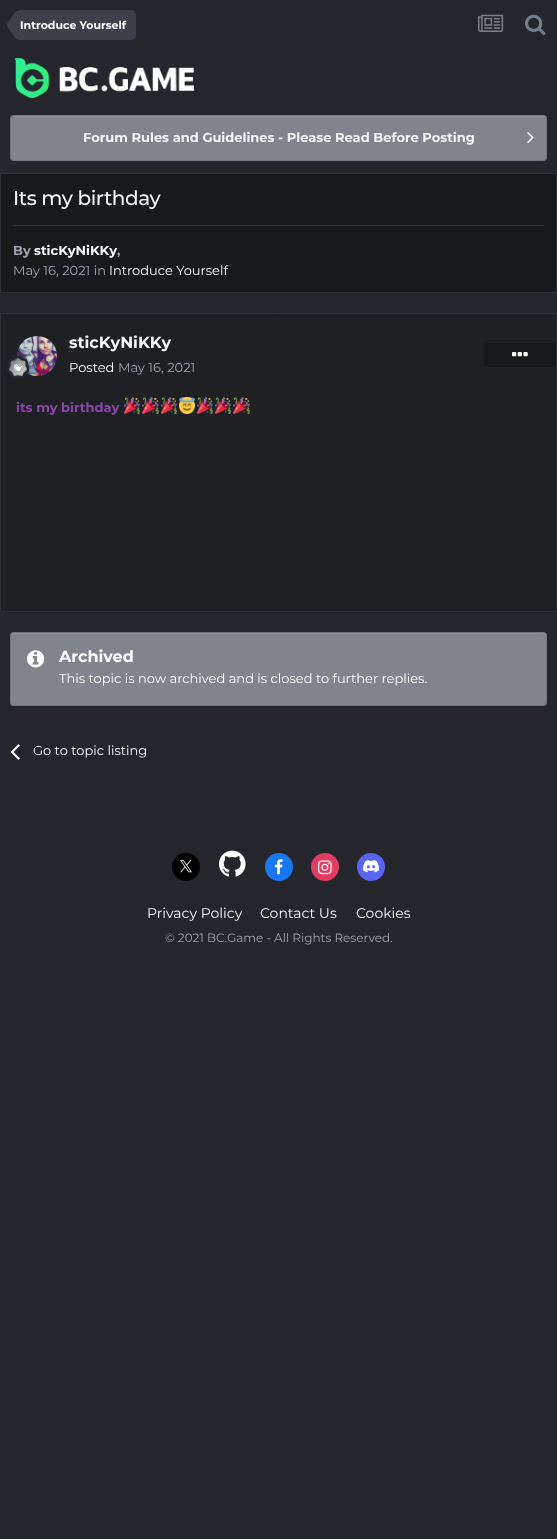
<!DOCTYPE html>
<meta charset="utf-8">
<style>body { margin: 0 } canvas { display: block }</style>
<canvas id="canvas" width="557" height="1539"></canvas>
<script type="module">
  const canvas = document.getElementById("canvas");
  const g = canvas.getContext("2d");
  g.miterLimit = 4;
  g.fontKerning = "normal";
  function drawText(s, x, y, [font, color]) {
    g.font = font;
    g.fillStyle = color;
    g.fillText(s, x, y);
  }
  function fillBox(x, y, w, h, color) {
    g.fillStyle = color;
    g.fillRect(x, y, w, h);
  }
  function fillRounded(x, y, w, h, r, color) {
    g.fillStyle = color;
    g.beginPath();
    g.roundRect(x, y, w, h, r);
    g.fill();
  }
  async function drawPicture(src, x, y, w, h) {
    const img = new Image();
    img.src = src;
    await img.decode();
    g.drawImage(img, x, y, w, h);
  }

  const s1 = ["bold 11px Montserrat", "#FFFFFF"];
  const s2 = ["bold 13px Montserrat", "#F5F6F7"];
  const s3 = ["500 20px Montserrat", "#F5F6F7"];
  const s4 = ["bold 13px Montserrat", "#99A4B0"];
  const s5 = ["13px Montserrat", "#99A4B0"];
  const s6 = ["13px Montserrat", "#F5F6F7"];
  const s7 = ["bold 16px Montserrat", "#F5F6F7"];
  const s8 = ["bold 13px Montserrat", "#8E44AD"];
  const s9 = ["bold 16px Montserrat", "#FFFFFF"];
  const s10 = ["13px Montserrat", "#FFFFFF"];
  const s11 = ["14px Montserrat", "#F5F6F7"];
  const s12 = ["12px Montserrat", "#99A4B0"];

  fillBox(0, 0, 557, 1539, "#24262B");
  g.fillStyle = "#3C404A";
  g.beginPath();
  g.roundRect(20, 10, 116, 30, [0, 5, 5, 0]);
  g.fill();
  g.beginPath();
  g.moveTo(26, 13.5);
  g.lineTo(28, 16.5);
  g.bezierCurveTo(31, 21, 31, 29, 28, 33.5);
  g.lineTo(26, 36.5);
  g.bezierCurveTo(22.5, 41, 17.5, 41, 14, 36.5);
  g.lineTo(7.5, 27);
  g.bezierCurveTo(7, 26, 7, 24, 7.5, 23);
  g.lineTo(14, 13.5);
  g.bezierCurveTo(17.5, 9, 22.5, 9, 26, 13.5);
  g.closePath();
  g.fill();
  drawText("Introduce Yourself", 20, 29, s1);
  await drawPicture("pic1.png", 478, 14, 26, 18);
  await drawPicture("pic2.png", 525, 14, 21, 22);
  await drawPicture("pic3.png", 15, 58, 179, 40);
  fillRounded(10, 115, 537, 46, 4, "#7F858D");
  g.fillStyle = "#8C9198";
  g.beginPath();
  g.moveTo(14, 117);
  g.lineTo(543, 117);
  g.bezierCurveTo(545, 117, 546, 118, 546, 120);
  g.lineTo(546, 119);
  g.bezierCurveTo(546, 117, 545, 116, 543, 116);
  g.lineTo(14, 116);
  g.bezierCurveTo(12, 116, 11, 117, 11, 119);
  g.lineTo(11, 120);
  g.bezierCurveTo(11, 118, 12, 117, 14, 117);
  g.closePath();
  g.fill();
  g.beginPath();
  g.roundRect(10.5, 115.5, 536, 45, 3.5);
  g.strokeStyle = "rgba(0, 0, 0, 0.1)";
  g.stroke();
  drawText("Forum Rules and Guidelines - Please Read Before Posting", 83, 142, s2);
  await drawPicture("pic4.png", 527, 132, 7, 11);
  g.fillStyle = "#17191B";
  g.beginPath();
  g.rect(0.5, 173.5, 556, 119);
  g.fill();
  g.strokeStyle = "#2D3035";
  g.stroke();
  g.letterSpacing = "-0.4px";
  drawText("Its my birthday", 13, 205, s3);
  fillBox(13, 225, 531, 1, "#2D3037");
  g.letterSpacing = "0px";
  drawText("By", 13, 255, s4);
  drawText("sticKyNiKKy", 34, 255, s2);
  drawText(",", 117, 255, s4);
  drawText("May 16, 2021 in", 13, 275, s5);
  drawText("Introduce Yourself", 109, 275, s6);
  g.fillStyle = "#1E2024";
  g.beginPath();
  g.rect(0.5, 313.5, 556, 298);
  g.fill();
  g.stroke();
  await drawPicture("pic5.png", 17, 336, 40, 40);
  await drawPicture("pic6.png", 7, 356, 22, 22);
  drawText("sticKyNiKKy", 69, 348, s7);
  drawText("Posted", 69, 372, s6);
  drawText("May 16, 2021", 118, 372, s5);
  fillBox(484, 343, 72, 24, "#17191B");
  await drawPicture("pic7.png", 512, 352, 16, 5);
  drawText("its my birthday", 16, 412, s8);
  await drawPicture("pic8.png", 124, 397, 16, 17);
  await drawPicture("pic9.png", 142, 397, 17, 17);
  await drawPicture("pic8.png", 161, 397, 16, 17);
  await drawPicture("pic10.png", 179, 397, 16, 17);
  await drawPicture("pic8.png", 197, 397, 16, 17);
  await drawPicture("pic8.png", 215, 397, 16, 17);
  await drawPicture("pic9.png", 233, 397, 17, 17);
  fillRounded(10, 632, 537, 74, 4, "#7F858D");
  g.fillStyle = "#8C9198";
  g.beginPath();
  g.moveTo(14, 634);
  g.lineTo(543, 634);
  g.bezierCurveTo(545, 634, 546, 635, 546, 637);
  g.lineTo(546, 636);
  g.bezierCurveTo(546, 634, 545, 633, 543, 633);
  g.lineTo(14, 633);
  g.bezierCurveTo(12, 633, 11, 634, 11, 636);
  g.lineTo(11, 637);
  g.bezierCurveTo(11, 635, 12, 634, 14, 634);
  g.closePath();
  g.fill();
  g.beginPath();
  g.roundRect(10.5, 632.5, 536, 73, 3.5);
  g.strokeStyle = "rgba(0, 0, 0, 0.1)";
  g.stroke();
  await drawPicture("pic11.png", 27, 650, 18, 18);
  drawText("Archived", 59, 662, s9);
  drawText("This topic is now archived and is closed to further replies.", 59, 683, s10);
  await drawPicture("pic12.png", 10, 744, 10, 16);
  drawText("Go to topic listing", 33, 755, s6);
  g.fillStyle = "#000000";
  g.beginPath();
  g.arc(186, 867, 14, 0, Math.PI * 2);
  g.fill();
  await drawPicture("pic13.png", 180, 860, 12, 13);
  await drawPicture("pic14.png", 219, 850, 27, 27);
  g.fillStyle = "#1778F2";
  g.beginPath();
  g.arc(279, 867, 14, 0, Math.PI * 2);
  g.fill();
  await drawPicture("pic15.png", 274, 859, 9, 16);
  g.fillStyle = "#E13D62";
  g.beginPath();
  g.arc(325, 867, 14, 0, Math.PI * 2);
  g.fill();
  await drawPicture("pic16.png", 318, 860, 14, 15);
  g.fillStyle = "#5865F2";
  g.beginPath();
  g.arc(371, 867, 14, 0, Math.PI * 2);
  g.fill();
  await drawPicture("pic17.png", 363, 860, 16, 13);
  drawText("Privacy Policy", 147, 918, s11);
  drawText("Contact Us", 260, 918, s11);
  drawText("Cookies", 356, 918, s11);
  drawText("© 2021 BC.Game - All Rights Reserved.", 165, 942, s12);
</script>
